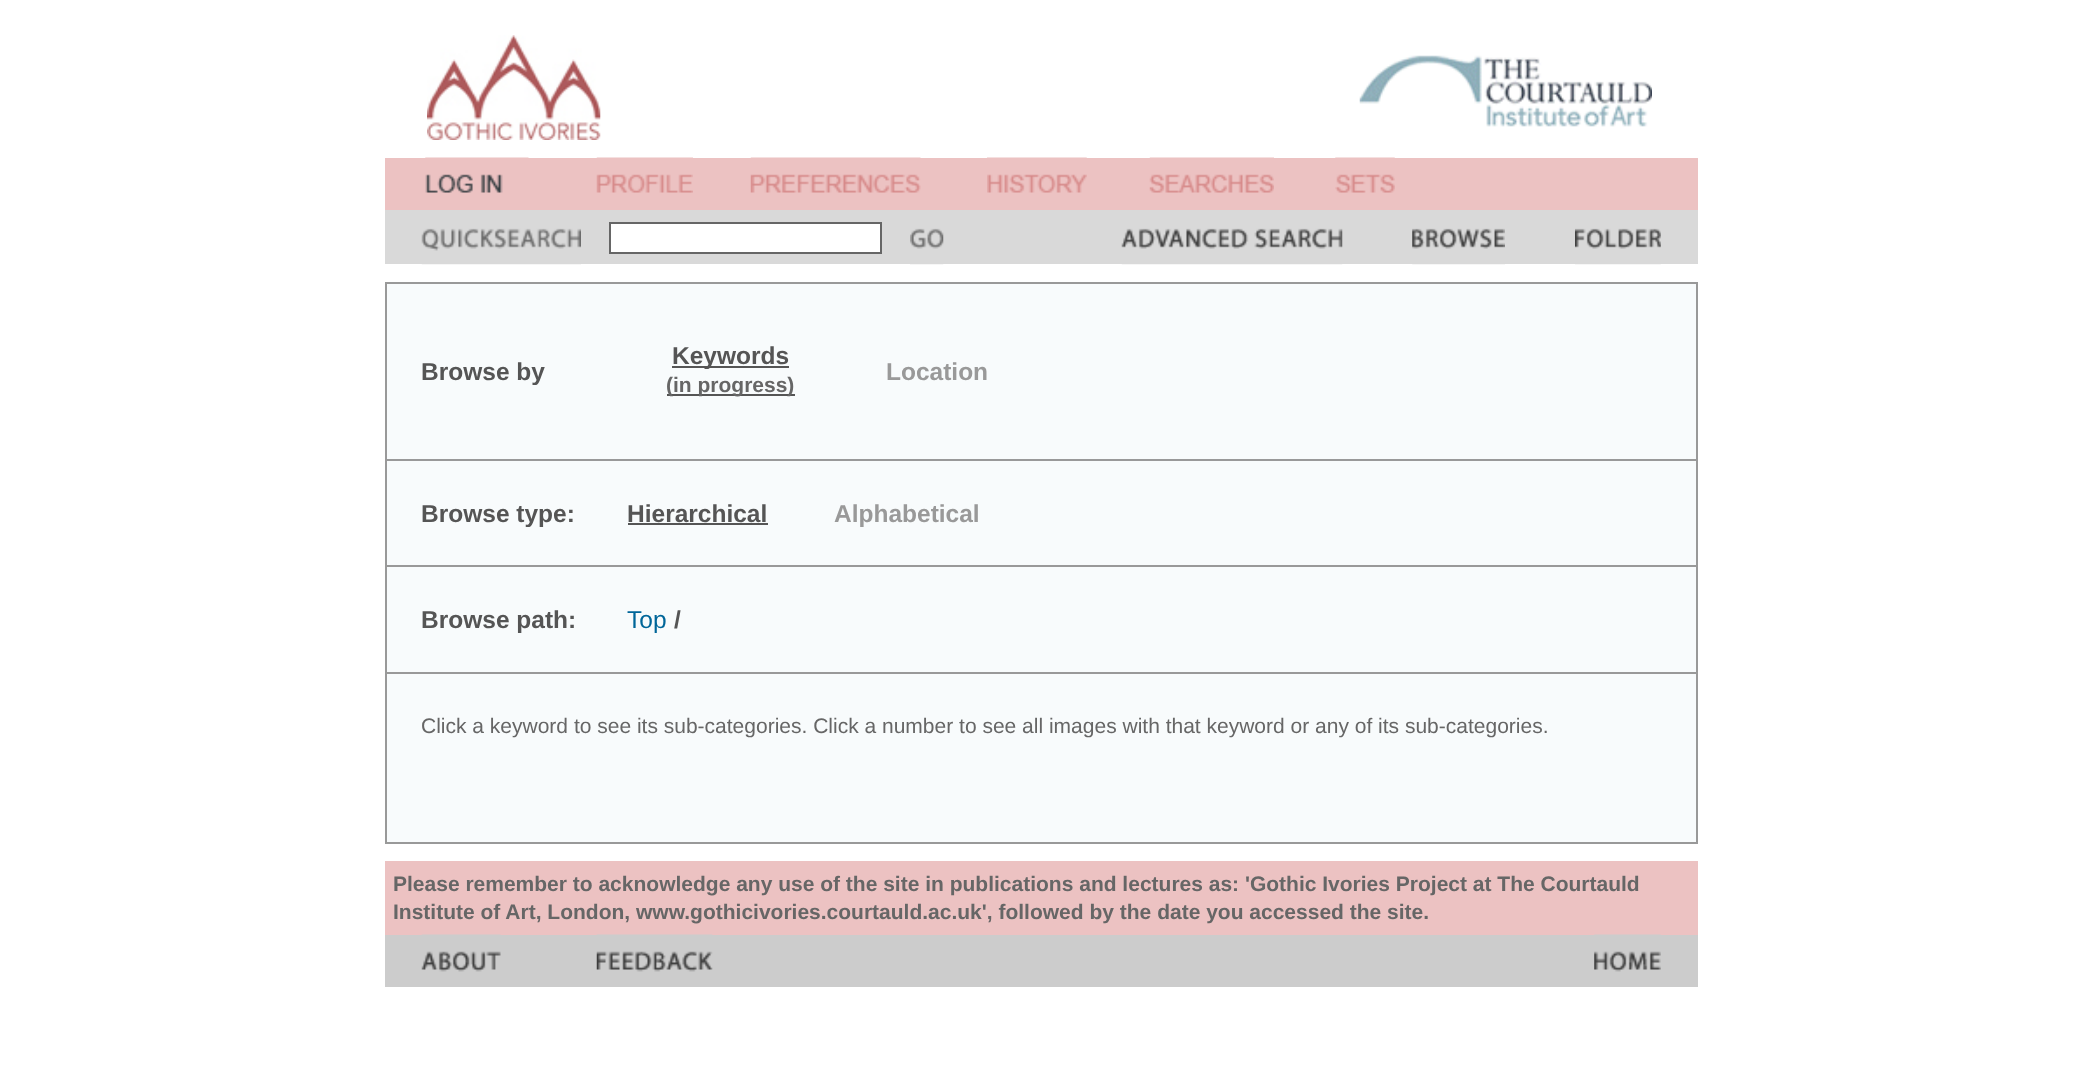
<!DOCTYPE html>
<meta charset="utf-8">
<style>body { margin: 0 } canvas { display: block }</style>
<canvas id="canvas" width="2080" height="1092"></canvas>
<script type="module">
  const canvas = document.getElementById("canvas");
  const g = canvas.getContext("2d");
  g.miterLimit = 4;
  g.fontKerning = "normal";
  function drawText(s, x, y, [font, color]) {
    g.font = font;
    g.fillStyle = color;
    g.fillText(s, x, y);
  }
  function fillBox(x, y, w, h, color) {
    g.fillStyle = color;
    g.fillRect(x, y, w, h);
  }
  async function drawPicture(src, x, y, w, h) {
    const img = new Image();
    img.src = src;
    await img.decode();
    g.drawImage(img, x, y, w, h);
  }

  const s1 = ["bold 24.5px Liberation Sans", "#555555"];
  const s2 = ["bold 21px Liberation Sans", "#666666"];
  const s3 = ["bold 24.5px Liberation Sans", "#999999"];
  const s4 = ["24.5px Liberation Sans", "#006699"];
  const s5 = ["21px Liberation Sans", "#666666"];

  fillBox(0, 0, 2080, 1092, "#FFFFFF");
  await drawPicture("pic1.png", 427, 35, 174, 105);
  await drawPicture("pic2.png", 1359, 55, 293, 72);
  fillBox(385, 158, 1313, 52, "#ECC2C2");
  await drawPicture("pic3.png", 425, 157, 104, 36);
  await drawPicture("pic4.png", 596, 157, 97, 36);
  await drawPicture("pic5.png", 750, 157, 171, 36);
  await drawPicture("pic6.png", 987, 157, 100, 36);
  await drawPicture("pic7.png", 1149, 157, 125, 36);
  await drawPicture("pic8.png", 1335, 157, 60, 36);
  fillBox(385, 210, 1313, 54, "#D9D9D9");
  await drawPicture("pic9.png", 421, 228, 160, 37);
  g.fillStyle = "#FFFFFF";
  g.beginPath();
  g.rect(610, 223, 271, 30);
  g.fill();
  g.strokeStyle = "#666666";
  g.lineWidth = 2;
  g.stroke();
  await drawPicture("pic10.png", 910, 228, 34, 37);
  await drawPicture("pic11.png", 1121, 228, 222, 37);
  await drawPicture("pic12.png", 1412, 228, 93, 37);
  await drawPicture("pic13.png", 1575, 228, 86, 37);
  fillBox(385, 282, 1313, 562, "#999999");
  fillBox(387, 284, 1309, 175, "#F8FBFC");
  drawText("Browse by", 421, 380, s1);
  fillBox(672, 366, 117, 2, "#555555");
  drawText("Keywords", 672, 364, s1);
  fillBox(667, 394, 128, 2, "#555555");
  drawText("(in progress)", 666, 392, s2);
  drawText("Location", 886, 380, s3);
  fillBox(387, 461, 1309, 104, "#F8FBFC");
  drawText("Browse type:", 421, 522, s1);
  drawText("Hierarchical", 627, 522, s1);
  fillBox(628, 523, 140, 2, "#555555");
  drawText("Alphabetical", 834, 522, s3);
  fillBox(387, 567, 1309, 105, "#F8FBFC");
  drawText("Browse path:", 421, 628, s1);
  drawText("Top", 627, 628, s4);
  drawText("/", 674, 628, s1);
  fillBox(387, 674, 1309, 168, "#F8FBFC");
  drawText("Click a keyword to see its sub-categories. Click a number to see all images with that keyword or any of its sub-categories.", 421, 733, s5);
  fillBox(385, 861, 1313, 74, "#ECC2C2");
  drawText("Please remember to acknowledge any use of the site in publications and lectures as: 'Gothic Ivories Project at The Courtauld", 393, 891, s2);
  drawText("Institute of Art, London, www.gothicivories.courtauld.ac.uk', followed by the date you accessed the site.", 393, 919, s2);
  fillBox(385, 935, 1313, 52, "#CCCCCC");
  await drawPicture("pic14.png", 421, 934, 80, 38);
  await drawPicture("pic15.png", 596, 934, 117, 38);
  await drawPicture("pic16.png", 1594, 934, 67, 38);
</script>
